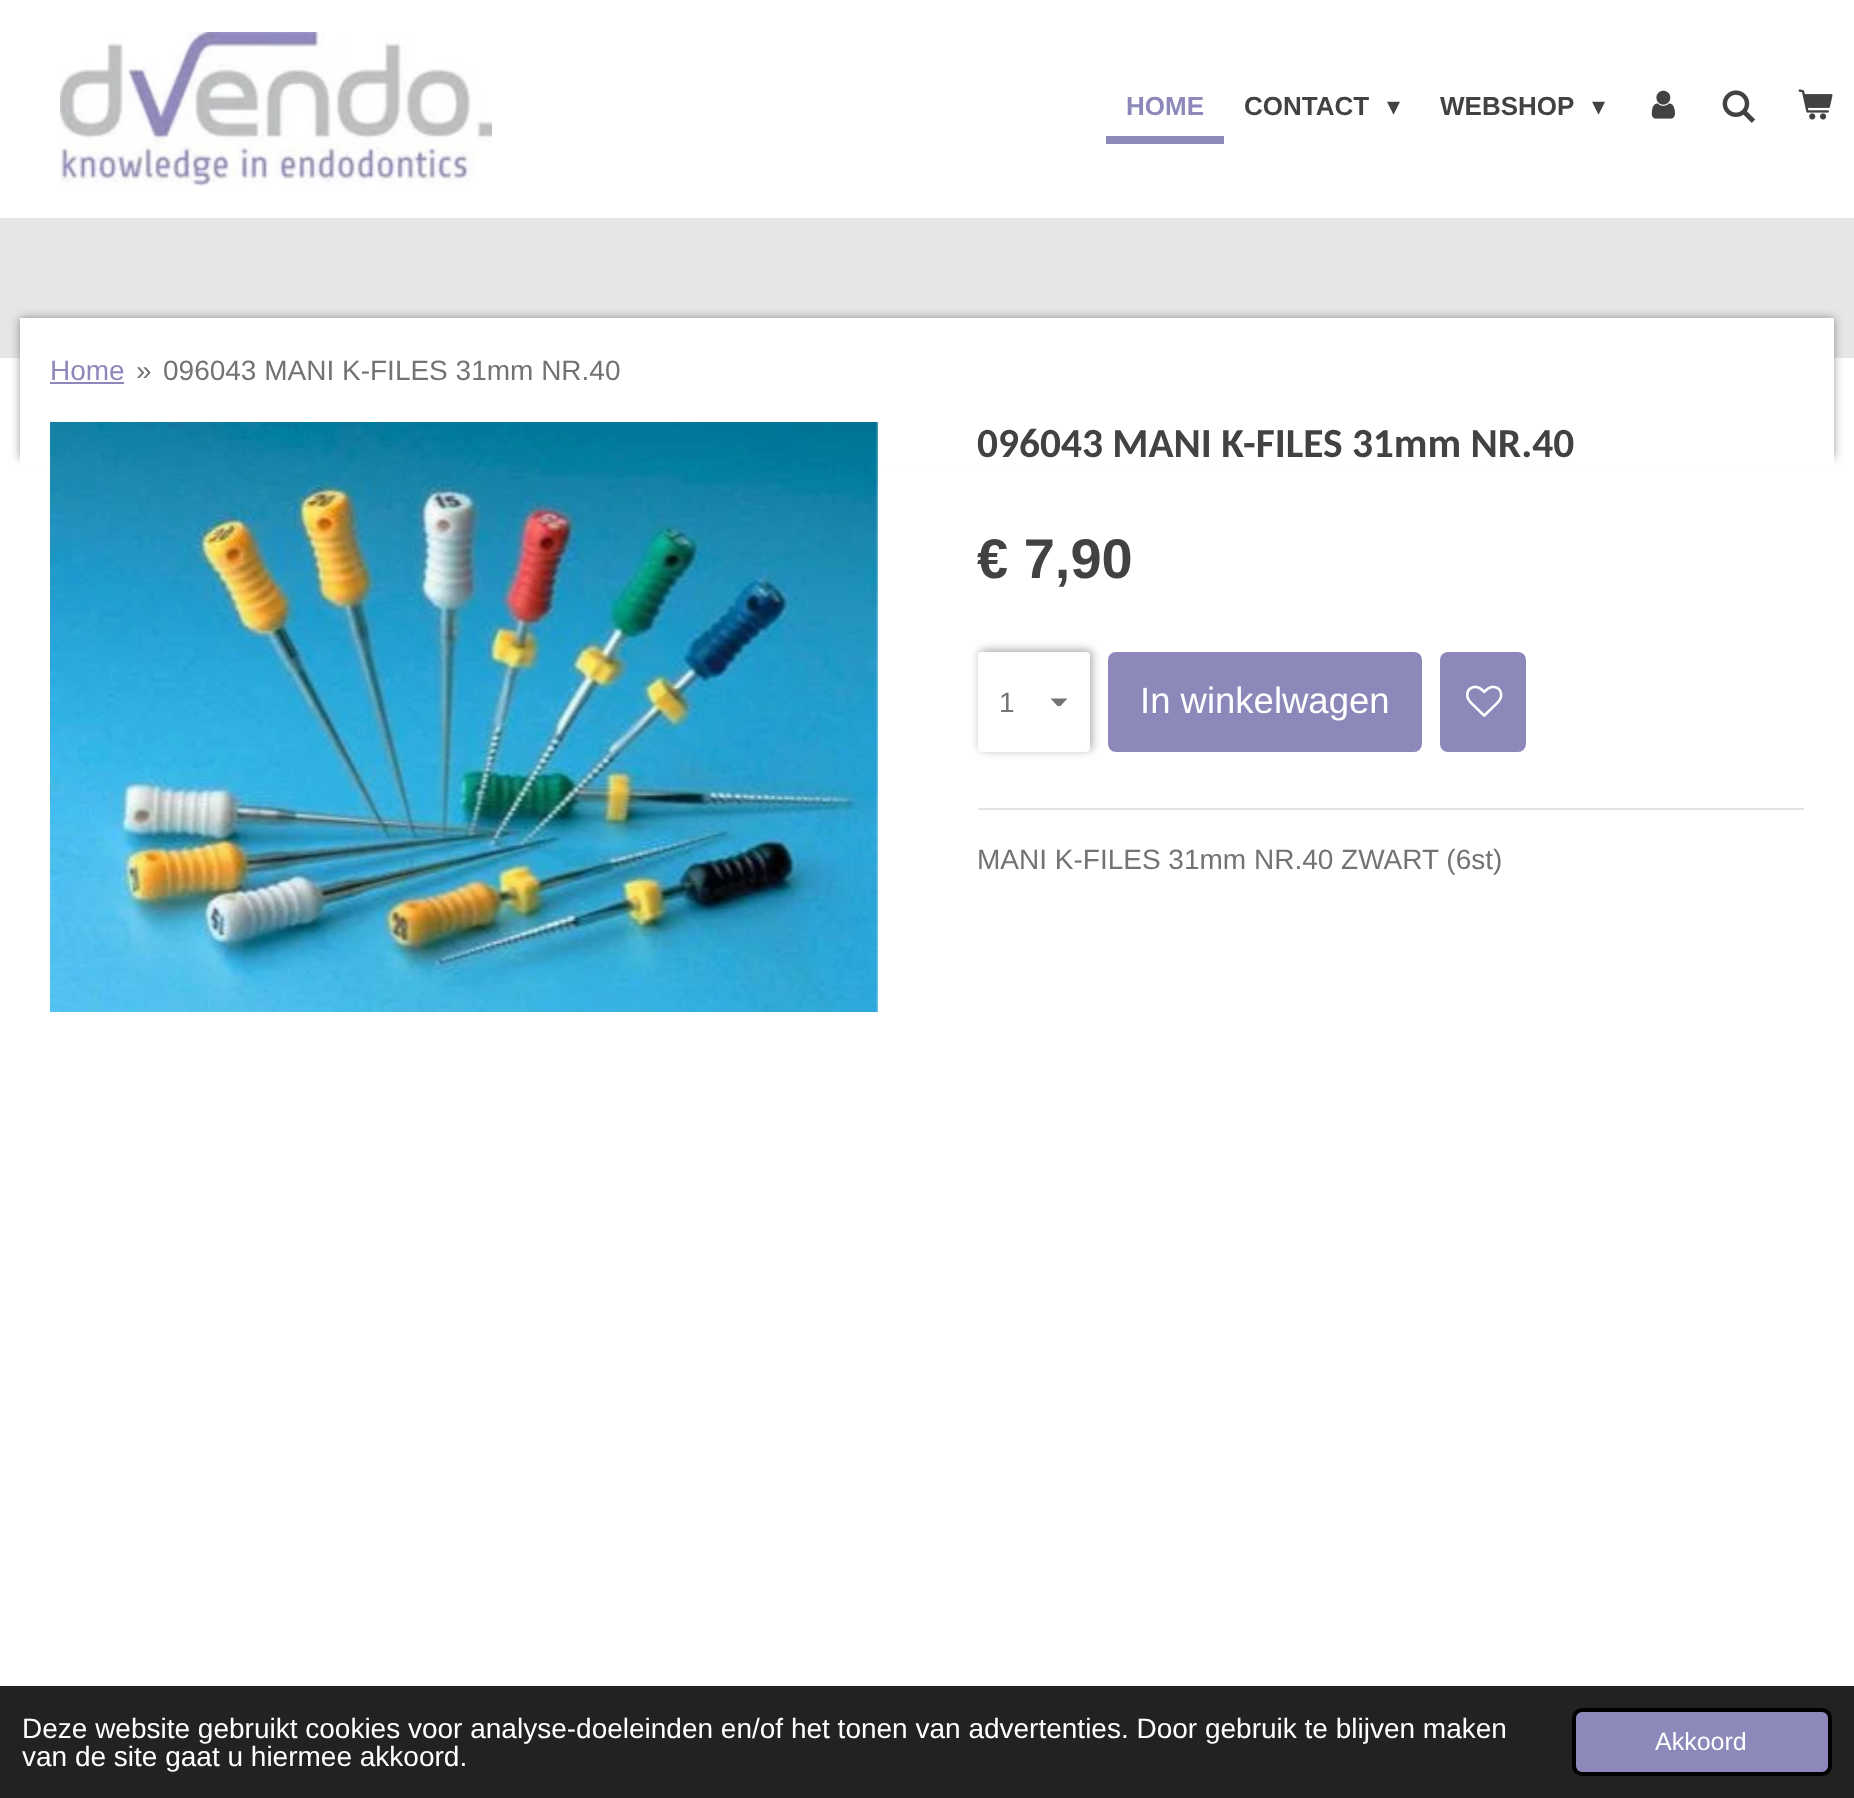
<!DOCTYPE html>
<meta charset="utf-8">
<style>body { margin: 0 } canvas { display: block }</style>
<canvas id="canvas" width="1854" height="1798"></canvas>
<script type="module">
  const canvas = document.getElementById("canvas");
  const g = canvas.getContext("2d");
  g.miterLimit = 4;
  g.fontKerning = "normal";
  function drawText(s, x, y, [font, color]) {
    g.font = font;
    g.fillStyle = color;
    g.fillText(s, x, y);
  }
  function fillBox(x, y, w, h, color) {
    g.fillStyle = color;
    g.fillRect(x, y, w, h);
  }
  function fillRounded(x, y, w, h, r, color) {
    g.fillStyle = color;
    g.beginPath();
    g.roundRect(x, y, w, h, r);
    g.fill();
  }
  async function drawPicture(src, x, y, w, h) {
    const img = new Image();
    img.src = src;
    await img.decode();
    g.drawImage(img, x, y, w, h);
  }

  const s1 = ["bold 26px Liberation Sans", "#8D88BA"];
  const s2 = ["bold 26px Liberation Sans", "#424242"];
  const s3 = ["26px DejaVu Sans", "#424242"];
  const s4 = ["28px Liberation Sans", "#8D88BA"];
  const s5 = ["28px Liberation Sans", "#737373"];
  const s6 = ["bold 41.4px Carlito", "#424242"];
  const s7 = ["bold 56px Liberation Sans", "#424242"];
  const s8 = ["36.5px Liberation Sans", "#FFFFFF"];
  const s9 = ["28px Liberation Sans", "#FFFFFF"];
  const s10 = ["25px Liberation Sans", "#FFFFFF"];

  fillBox(0, 0, 1854, 1798, "#FFFFFF");
  await drawPicture("pic1.png", 60, 32, 432, 154);
  fillBox(1106, 136, 118, 8, "#8D88BA");
  drawText("HOME", 1126, 115, s1);
  drawText("CONTACT", 1244, 115, s2);
  drawText("▾", 1387, 115, s3);
  drawText("WEBSHOP", 1440, 115, s2);
  drawText("▾", 1592, 115, s3);
  await drawPicture("pic2.png", 1651, 90, 24, 29);
  await drawPicture("pic3.png", 1722, 90, 33, 33);
  await drawPicture("pic4.png", 1798, 89, 35, 31);
  fillBox(0, 218, 1854, 140, "#E6E6E6");
  g.fillStyle = "rgba(0, 0, 0, 0.4)";
  g.filter = "blur(5px)";
  g.beginPath();
  g.rect(20, 318, 1814, 140);
  g.fill();
  g.filter = "none";
  fillBox(20, 318, 1814, 150, "#FFFFFF");
  drawText("Home", 50, 380, s4);
  fillBox(50, 382, 74, 2, "#8D88BA");
  drawText("»", 136, 380, s5);
  drawText("096043 MANI K-FILES 31mm NR.40", 163, 380, s5);
  await drawPicture("pic5.png", 50, 422, 828, 590);
  drawText("096043 MANI K-FILES 31mm NR.40", 977, 457, s6);
  drawText("€ 7,90", 977, 578, s7);
  g.fillStyle = "rgba(0, 0, 0, 0.35)";
  g.filter = "blur(5px)";
  g.beginPath();
  g.roundRect(980, 650, 112, 100, 4);
  g.fill();
  g.filter = "none";
  fillRounded(978, 652, 112, 100, 4, "#FFFFFF");
  g.save();
  g.beginPath();
  g.rect(1050, 698, 18, 8);
  g.clip();
  g.fillStyle = "#737373";
  g.beginPath();
  g.moveTo(1059, 707.5);
  g.lineTo(1050.5, 698.5);
  g.lineTo(1067.5, 698.5);
  g.closePath();
  g.fill();
  g.restore();
  drawText("1", 999, 712, s5);
  fillRounded(1108, 652, 314, 100, 8, "#8D88BA");
  drawText("In winkelwagen", 1140, 713, s8);
  fillRounded(1440, 652, 86, 100, 8, "#8D88BA");
  await drawPicture("pic6.png", 1466, 685, 37, 32);
  fillBox(978, 808, 826, 2, "#E3E3E3");
  drawText("MANI K-FILES 31mm NR.40 ZWART (6st)", 977, 869, s5);
  fillBox(0, 1686, 1854, 112, "#222222");
  drawText("Deze website gebruikt cookies voor analyse-doeleinden en/of het tonen van advertenties. Door gebruik te blijven maken", 22, 1738, s9);
  drawText("van de site gaat u hiermee akkoord.", 22, 1766, s9);
  g.fillStyle = "#8D88BA";
  g.beginPath();
  g.roundRect(1574, 1710, 256, 64, 8);
  g.fill();
  g.strokeStyle = "#000000";
  g.lineWidth = 4;
  g.stroke();
  drawText("Akkoord", 1655, 1750, s10);
</script>
